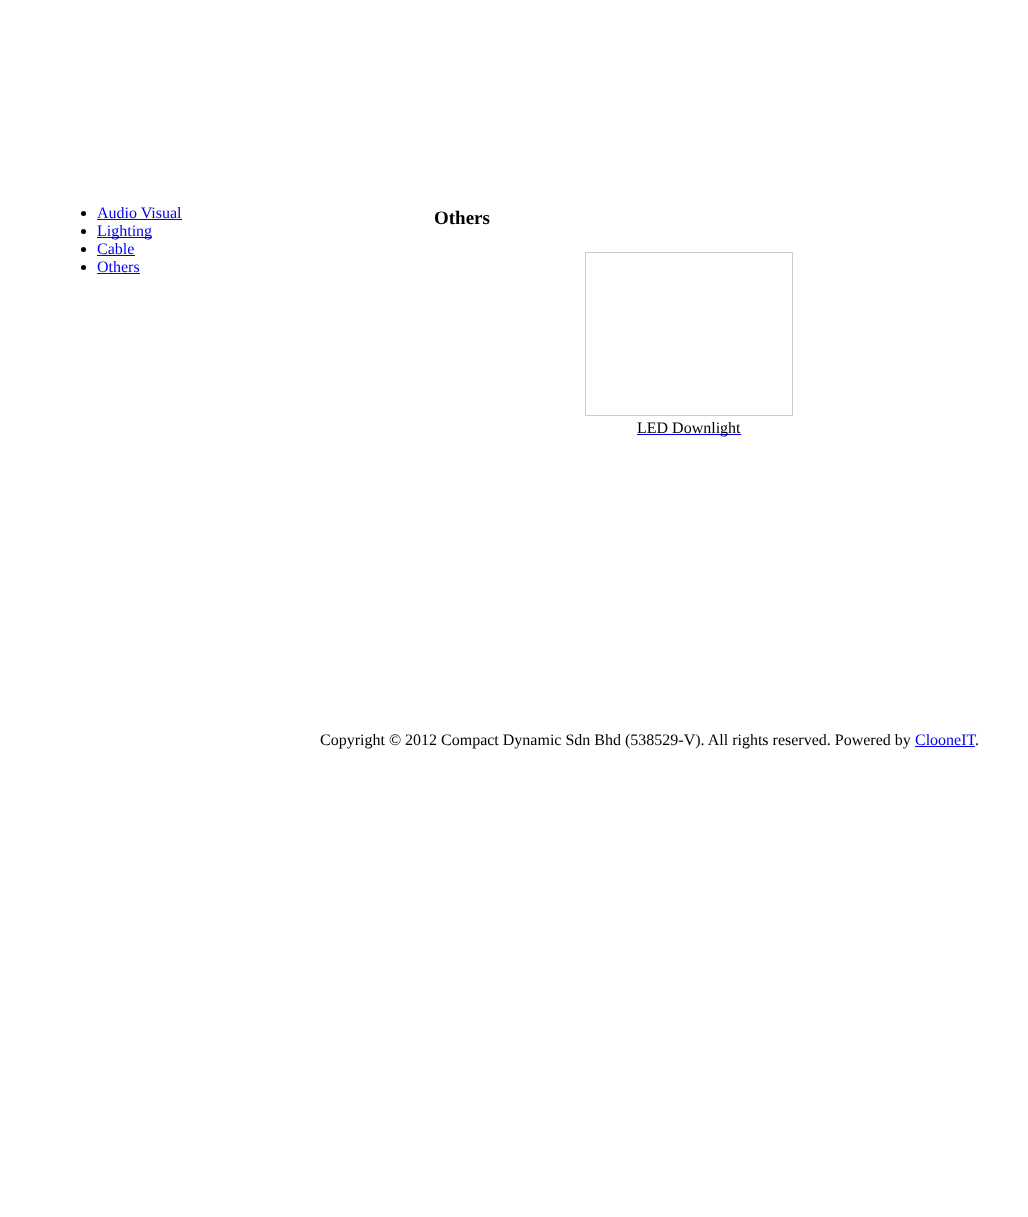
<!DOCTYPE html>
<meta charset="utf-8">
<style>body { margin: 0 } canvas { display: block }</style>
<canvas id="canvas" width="1028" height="1217"></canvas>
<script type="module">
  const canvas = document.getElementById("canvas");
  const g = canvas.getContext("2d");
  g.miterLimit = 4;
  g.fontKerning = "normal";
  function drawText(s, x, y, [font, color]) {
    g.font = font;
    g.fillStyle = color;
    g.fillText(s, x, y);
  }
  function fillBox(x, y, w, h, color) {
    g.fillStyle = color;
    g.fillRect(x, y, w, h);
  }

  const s1 = ["16px Liberation Serif", "#0000EE"];
  const s2 = ["bold 19px Liberation Serif", "#000000"];
  const s3 = ["16px Liberation Serif", "#000000"];

  fillBox(0, 0, 1028, 1217, "#FFFFFF");
  g.fillStyle = "#000000";
  g.beginPath();
  g.arc(83.5, 213.5, 2.5, 0, Math.PI * 2);
  g.fill();
  drawText("Audio Visual", 97, 218, s1);
  fillBox(97, 219, 85, 1, "#0000EE");
  g.fillStyle = "#000000";
  g.beginPath();
  g.arc(83.5, 231.5, 2.5, 0, Math.PI * 2);
  g.fill();
  fillBox(97, 237, 55, 1, "#0000EE");
  drawText("Lighting", 97, 236, s1);
  g.fillStyle = "#000000";
  g.beginPath();
  g.arc(83.5, 249.5, 2.5, 0, Math.PI * 2);
  g.fill();
  drawText("Cable", 97, 254, s1);
  fillBox(97, 255, 38, 1, "#0000EE");
  g.fillStyle = "#000000";
  g.beginPath();
  g.arc(83.5, 267.5, 2.5, 0, Math.PI * 2);
  g.fill();
  drawText("Others", 97, 272, s1);
  fillBox(97, 273, 43, 1, "#0000EE");
  drawText("Others", 434, 224, s2);
  g.strokeStyle = "#CCCCCC";
  g.strokeRect(585.5, 252.5, 207, 163);
  fillBox(637, 434, 104, 1, "#0000EE");
  drawText("LED Downlight", 637, 433, s3);
  drawText("Copyright © 2012 Compact Dynamic Sdn Bhd (538529-V). All rights reserved. Powered by", 320, 745, s3);
  drawText("ClooneIT", 915, 745, s1);
  fillBox(915, 746, 60, 1, "#0000EE");
  drawText(".", 975, 745, s3);
</script>
